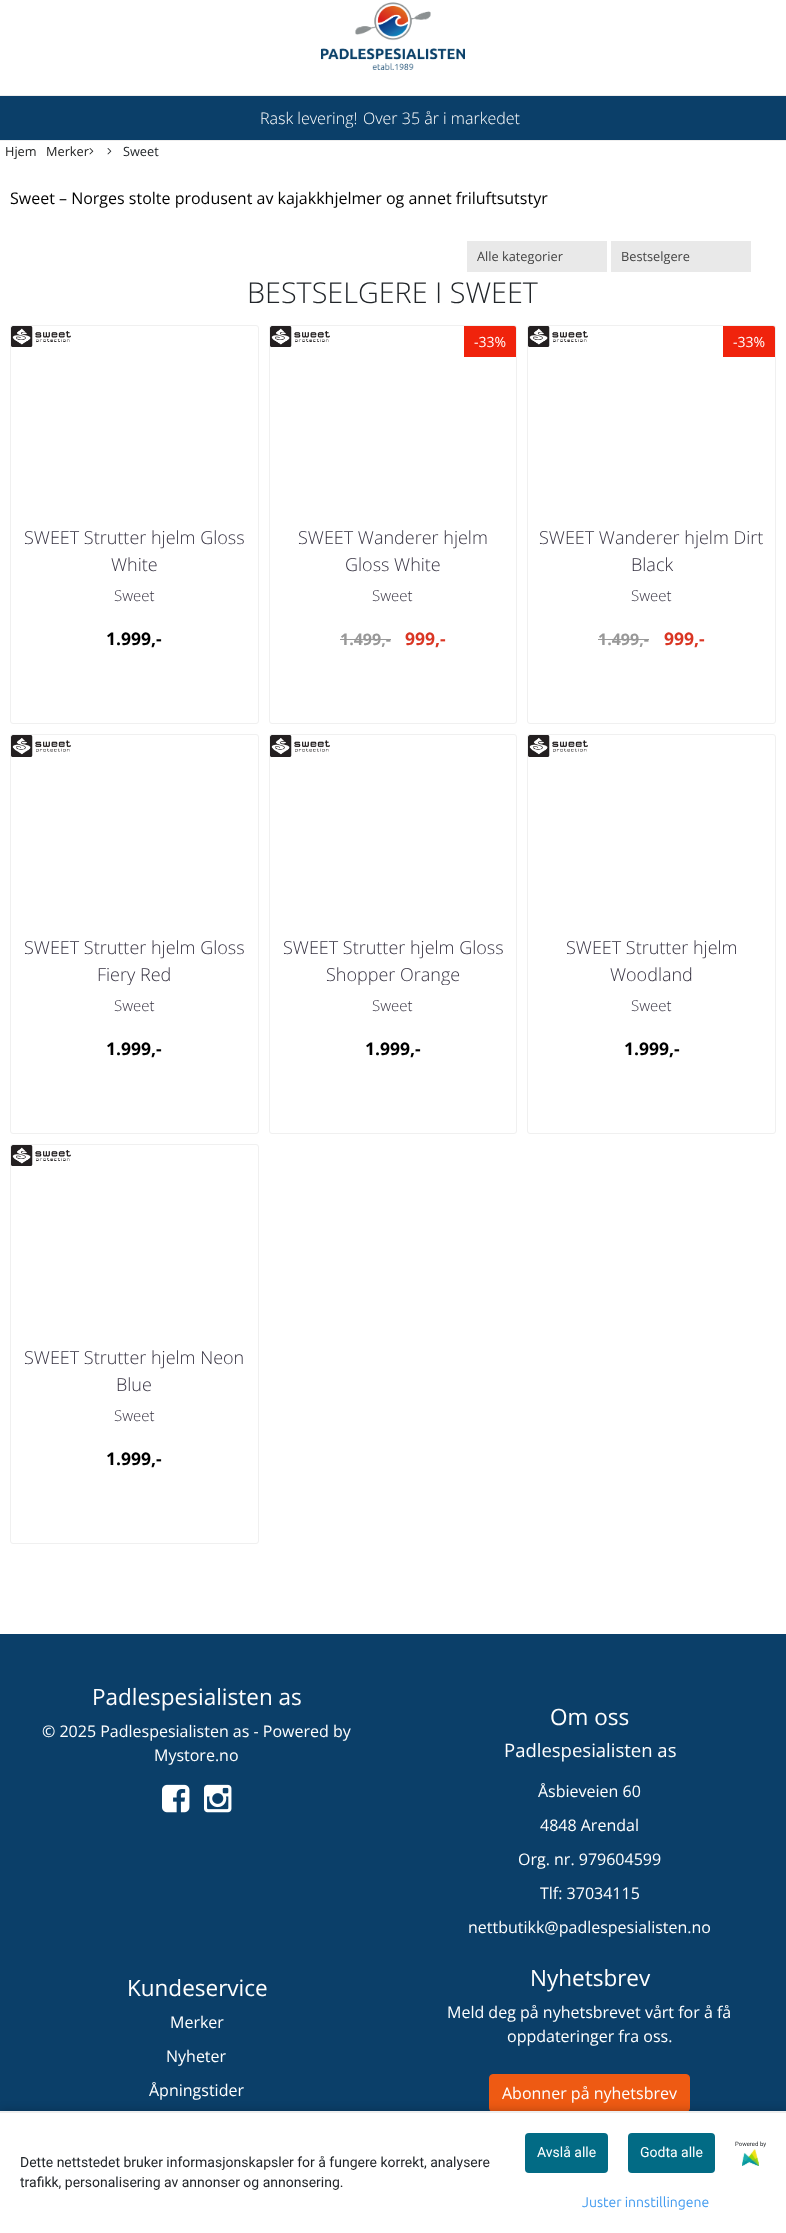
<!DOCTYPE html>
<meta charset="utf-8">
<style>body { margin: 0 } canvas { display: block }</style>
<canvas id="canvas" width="786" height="2233"></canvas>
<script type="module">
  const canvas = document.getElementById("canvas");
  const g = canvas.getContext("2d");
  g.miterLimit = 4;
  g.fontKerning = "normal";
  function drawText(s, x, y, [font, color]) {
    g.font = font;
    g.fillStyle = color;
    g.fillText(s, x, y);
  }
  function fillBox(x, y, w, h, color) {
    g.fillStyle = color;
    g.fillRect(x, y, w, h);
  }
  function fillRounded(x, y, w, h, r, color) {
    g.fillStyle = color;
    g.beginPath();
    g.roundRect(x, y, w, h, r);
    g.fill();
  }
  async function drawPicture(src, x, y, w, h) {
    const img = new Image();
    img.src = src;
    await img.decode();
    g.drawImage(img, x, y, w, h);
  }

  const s1 = ["300 16px Open Sans", "#FFFFFF"];
  const s2 = ["12.75px Open Sans", "#202121"];
  const s3 = ["12.75px Open Sans", "#212529"];
  const s4 = ["16px Open Sans", "#000000"];
  const s5 = ["12.75px Open Sans", "#444444"];
  const s6 = ["300 28.75px Open Sans", "#212529"];
  const s7 = ["300 18px Open Sans", "#363241"];
  const s8 = ["300 15px Open Sans", "#363241"];
  const s9 = ["bold 17.5px Open Sans", "#000000"];
  const s10 = ["14px Open Sans", "#FFFFFF"];
  const s11 = ["bold 16px Open Sans", "#989898"];
  const s12 = ["bold 17.5px Open Sans", "#DA3624"];
  const s13 = ["22.5px Open Sans", "#FFFFFF"];
  const s14 = ["16px Open Sans", "#FFFFFF"];
  const s15 = ["18.5px Open Sans", "#FFFFFF"];
  const s16 = ["14px Roboto", "#212529"];
  const s17 = ["14px Roboto", "#FFFFFF"];
  const s18 = ["6px Roboto", "#212529"];
  const s19 = ["14px Ubuntu", "#409AEF"];

  fillBox(0, 0, 786, 2233, "#FFFFFF");
  await drawPicture("pic1.png", 321, 2, 144, 68);
  fillBox(0, 96, 786, 44, "#0B3F69");
  fillBox(0, 95, 786, 1, "#EEEEEE");
  fillBox(0, 140, 786, 1, "#EEEEEE");
  drawText("Rask levering!", 260, 124, s1);
  drawText("Over 35 år i markedet", 363, 124, s1);
  drawText("Hjem", 5, 156, s2);
  drawText("Merker", 46, 156, s2);
  await drawPicture("pic2.png", 89, 148, 5, 7);
  await drawPicture("pic3.png", 107, 148, 5, 7);
  drawText("Sweet", 123, 156, s3);
  drawText("Sweet – Norges stolte produsent av kajakkhjelmer og annet friluftsutstyr", 10, 204, s4);
  fillBox(467, 241, 140, 31, "#E9E9E9");
  drawText("Alle kategorier", 477, 261, s5);
  fillBox(611, 241, 140, 31, "#E9E9E9");
  drawText("Bestselgere", 621, 261, s5);
  drawText("BESTSELGERE I SWEET", 247, 303, s6);
  g.beginPath();
  g.roundRect(10.5, 325.5, 248, 398, 2.5);
  g.strokeStyle = "#F0F0F0";
  g.stroke();
  await drawPicture("pic4.png", 11, 326, 60, 21);
  drawText("SWEET Strutter hjelm Gloss", 24, 544, s7);
  drawText("White", 111, 571, s7);
  drawText("Sweet", 114, 601, s8);
  drawText("1.999,-", 106, 645, s9);
  g.beginPath();
  g.roundRect(269.5, 325.5, 247, 398, 2.5);
  g.stroke();
  await drawPicture("pic4.png", 270, 326, 60, 21);
  g.fillStyle = "#F0230C";
  g.beginPath();
  g.roundRect(464, 326, 52, 31, [0, 2, 0, 0]);
  g.fill();
  drawText("-33%", 474, 347, s10);
  drawText("SWEET Wanderer hjelm", 298, 544, s7);
  drawText("Gloss White", 345, 571, s7);
  drawText("Sweet", 372, 601, s8);
  drawText("1.499,-", 340, 645, s11);
  fillBox(340, 639, 51, 1, "#989898");
  drawText("999,-", 405, 645, s12);
  g.beginPath();
  g.roundRect(527.5, 325.5, 248, 398, 2.5);
  g.stroke();
  await drawPicture("pic4.png", 528, 326, 60, 21);
  g.fillStyle = "#F0230C";
  g.beginPath();
  g.roundRect(723, 326, 52, 31, [0, 2, 0, 0]);
  g.fill();
  drawText("-33%", 733, 347, s10);
  drawText("SWEET Wanderer hjelm Dirt", 539, 544, s7);
  drawText("Black", 631, 571, s7);
  drawText("Sweet", 631, 601, s8);
  drawText("1.499,-", 598, 645, s11);
  fillBox(598, 639, 51, 1, "#989898");
  drawText("999,-", 664, 645, s12);
  g.beginPath();
  g.roundRect(10.5, 734.5, 248, 399, 2.5);
  g.stroke();
  await drawPicture("pic5.png", 11, 735, 60, 22);
  drawText("SWEET Strutter hjelm Gloss", 24, 954, s7);
  g.save();
  g.beginPath();
  g.rect(21, 934, 227, 51);
  g.clip();
  drawText("Fiery Red", 97, 981, s7);
  g.restore();
  drawText("Sweet", 114, 1011, s8);
  drawText("1.999,-", 106, 1055, s9);
  g.beginPath();
  g.roundRect(269.5, 734.5, 247, 399, 2.5);
  g.stroke();
  await drawPicture("pic5.png", 270, 735, 60, 22);
  drawText("SWEET Strutter hjelm Gloss", 283, 954, s7);
  g.save();
  g.beginPath();
  g.rect(280, 934, 226, 51);
  g.clip();
  drawText("Shopper Orange", 326, 981, s7);
  g.restore();
  drawText("Sweet", 372, 1011, s8);
  drawText("1.999,-", 365, 1055, s9);
  g.beginPath();
  g.roundRect(527.5, 734.5, 248, 399, 2.5);
  g.stroke();
  await drawPicture("pic5.png", 528, 735, 60, 22);
  drawText("SWEET Strutter hjelm", 566, 954, s7);
  drawText("Woodland", 610, 981, s7);
  drawText("Sweet", 631, 1011, s8);
  drawText("1.999,-", 624, 1055, s9);
  g.beginPath();
  g.roundRect(10.5, 1144.5, 248, 399, 2.5);
  g.stroke();
  await drawPicture("pic4.png", 11, 1145, 60, 21);
  drawText("SWEET Strutter hjelm Neon", 24, 1364, s7);
  drawText("Blue", 116, 1391, s7);
  drawText("Sweet", 114, 1421, s8);
  drawText("1.999,-", 106, 1465, s9);
  fillBox(0, 1634, 786, 477, "#0B3F69");
  drawText("Padlespesialisten as", 92, 1705, s13);
  drawText("© 2025 Padlespesialisten as - Powered by", 42, 1737, s14);
  drawText("Mystore.no", 154, 1761, s14);
  await drawPicture("pic6.png", 162, 1784, 28, 29);
  await drawPicture("pic7.png", 204, 1784, 28, 29);
  drawText("Om oss", 550, 1725, s13);
  drawText("Padlespesialisten as", 504, 1757, s15);
  drawText("Åsbieveien 60", 538, 1797, s14);
  drawText("4848 Arendal", 540, 1831, s14);
  drawText("Org. nr. 979604599", 518, 1865, s14);
  drawText("Tlf: 37034115", 540, 1899, s14);
  drawText("nettbutikk@padlespesialisten.no", 468, 1933, s14);
  drawText("Kundeservice", 127, 1996, s13);
  drawText("Merker", 170, 2028, s14);
  drawText("Nyheter", 166, 2062, s14);
  drawText("Åpningstider", 149, 2096, s14);
  drawText("Nyhetsbrev", 530, 1986, s13);
  drawText("Meld deg på nyhetsbrevet vårt for å få", 447, 2018, s14);
  drawText("oppdateringer fra oss.", 507, 2042, s14);
  g.fillStyle = "#EE5A13";
  g.beginPath();
  g.roundRect(489.5, 2074.5, 200, 37, 3.5);
  g.fill();
  g.strokeStyle = "#EE5A13";
  g.stroke();
  drawText("Abonner på nyhetsbrev", 502, 2099, s14);
  g.fillStyle = "rgba(0, 0, 0, 0.25)";
  g.filter = "blur(5px)";
  g.beginPath();
  g.rect(0, 2111, 786, 122);
  g.fill();
  g.filter = "none";
  fillBox(0, 2113, 786, 120, "#FFFFFF");
  fillBox(0, 2111, 786, 2, "#EEEEEE");
  drawText("Dette nettstedet bruker informasjonskapsler for å fungere korrekt, analysere", 20, 2167, s16);
  drawText("trafikk, personalisering av annonser og annonsering.", 20, 2187, s16);
  fillRounded(525, 2133, 83, 40, 4, "#026B85");
  drawText("Avslå alle", 537, 2157, s17);
  fillRounded(628, 2133, 87, 40, 4, "#026B85");
  drawText("Godta alle", 640, 2157, s17);
  drawText("Powered by", 735, 2146, s18);
  await drawPicture("pic8.png", 742, 2149, 17, 17);
  drawText("Juster innstillingene", 582, 2207, s19);
</script>
